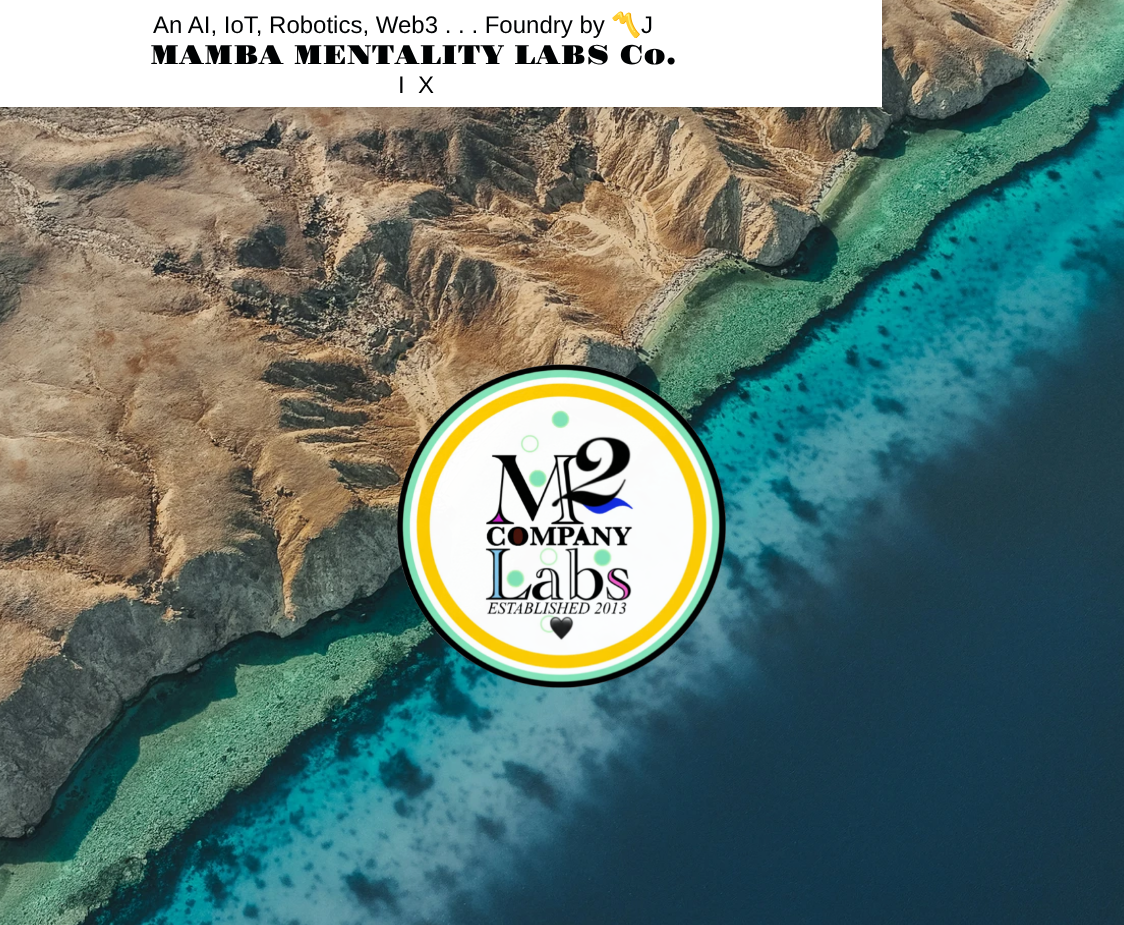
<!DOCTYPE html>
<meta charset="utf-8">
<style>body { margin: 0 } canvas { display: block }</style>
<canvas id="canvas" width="1124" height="925"></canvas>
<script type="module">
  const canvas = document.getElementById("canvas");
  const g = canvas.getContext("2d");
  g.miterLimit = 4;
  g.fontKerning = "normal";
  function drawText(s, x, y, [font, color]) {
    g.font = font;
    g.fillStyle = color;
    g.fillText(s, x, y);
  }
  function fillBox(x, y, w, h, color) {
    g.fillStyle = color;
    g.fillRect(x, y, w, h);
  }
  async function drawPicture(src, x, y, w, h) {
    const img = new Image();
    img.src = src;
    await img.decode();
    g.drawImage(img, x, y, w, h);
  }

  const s1 = ["24px Liberation Sans", "#000203"];
  const s2 = ["24px Noto Color Emoji", "#000203"];
  const s3 = ["27px Gravitas One", "#000203"];

  fillBox(0, 0, 1124, 925, "#FFFFFF");
  await drawPicture("pic1.png", 0, 0, 1124, 925);
  await drawPicture("pic2.png", 397, 364, 329, 324);
  g.fillStyle = "rgba(0, 0, 0, 0.06)";
  g.filter = "blur(4px)";
  g.beginPath();
  g.rect(-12, 17, 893, 99);
  g.fill();
  g.filter = "none";
  g.fillStyle = "rgba(0, 0, 0, 0.15)";
  g.filter = "blur(1.5px)";
  g.beginPath();
  g.rect(-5, 7, 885, 101);
  g.fill();
  g.filter = "none";
  fillBox(0, 0, 882, 107, "#FFFFFF");
  drawText("An AI, IoT, Robotics, Web3 . . . Foundry by", 153, 33, s1);
  drawText("〽️", 611, 33, s2);
  drawText("J", 641, 33, s1);
  drawText("MAMBA MENTALITY LABS Co.", 150, 64, s3);
  drawText("I", 398, 93, s1);
  drawText("X", 418, 93, s1);
</script>
